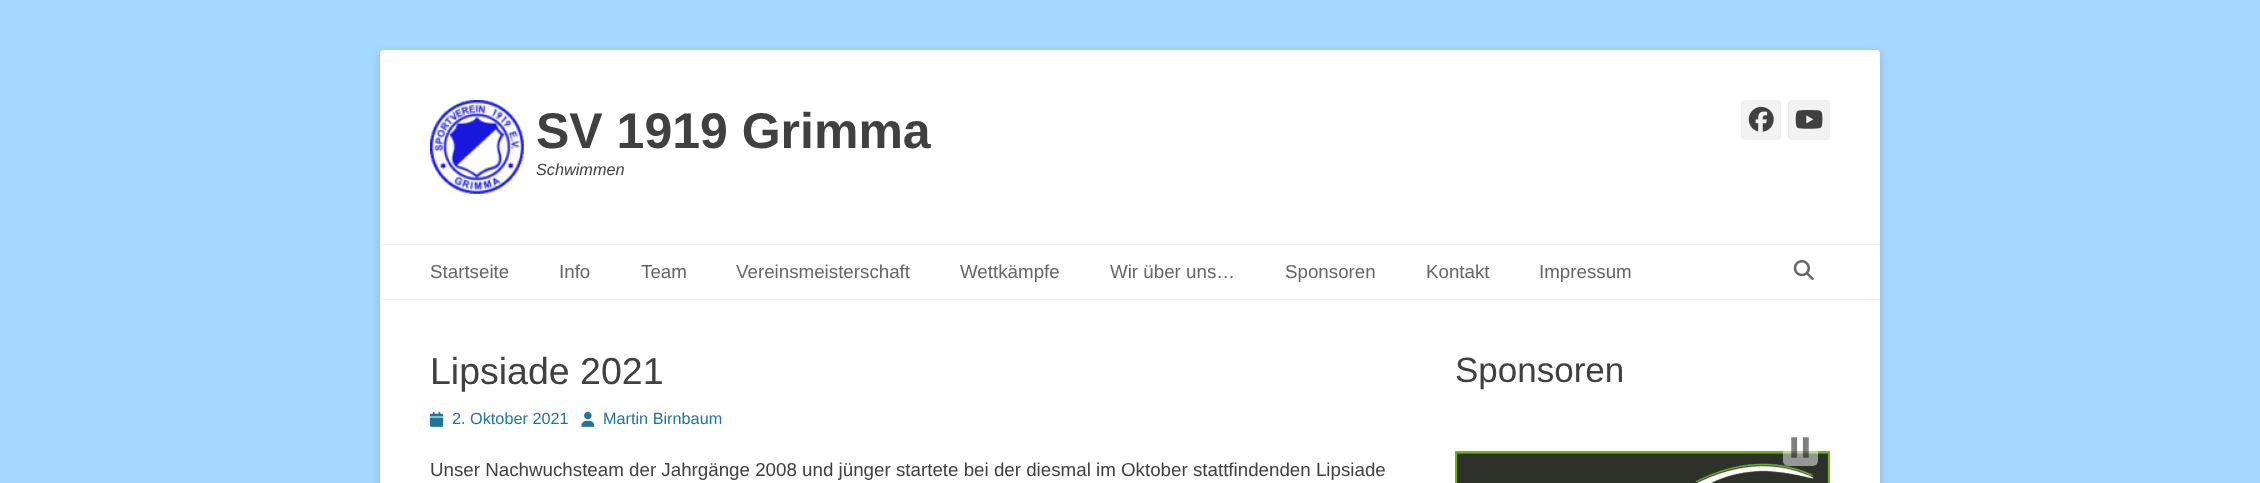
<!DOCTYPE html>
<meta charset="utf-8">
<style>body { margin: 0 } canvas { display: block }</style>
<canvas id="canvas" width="2260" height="483"></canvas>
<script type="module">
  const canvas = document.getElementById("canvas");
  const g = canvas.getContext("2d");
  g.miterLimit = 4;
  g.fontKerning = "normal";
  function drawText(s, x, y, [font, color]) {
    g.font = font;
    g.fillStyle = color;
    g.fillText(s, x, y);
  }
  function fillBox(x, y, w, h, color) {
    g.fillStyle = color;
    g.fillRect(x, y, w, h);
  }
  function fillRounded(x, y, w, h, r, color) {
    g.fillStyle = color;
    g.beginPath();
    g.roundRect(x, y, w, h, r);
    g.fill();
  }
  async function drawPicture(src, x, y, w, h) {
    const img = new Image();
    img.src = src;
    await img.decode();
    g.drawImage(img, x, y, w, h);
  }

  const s1 = ["bold 50px Liberation Sans", "#404040"];
  const s2 = ["italic 16.25px Liberation Sans", "#404040"];
  const s3 = ["18.75px Liberation Sans", "#666666"];
  const s4 = ["37.5px Liberation Sans", "#404040"];
  const s5 = ["16.25px Liberation Sans", "#21759B"];
  const s6 = ["18.75px Liberation Sans", "#404040"];
  const s7 = ["35px Liberation Sans", "#404040"];

  fillBox(0, 0, 2260, 483, "#A5D8FF");
  g.fillStyle = "rgba(100, 100, 100, 0.3)";
  g.filter = "blur(4px)";
  g.beginPath();
  g.roundRect(380, 53, 1500, 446, 4);
  g.fill();
  g.filter = "none";
  fillRounded(380, 50, 1500, 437, 4, "#FFFFFF");
  await drawPicture("pic1.png", 430, 100, 94, 94);
  drawText("SV 1919 Grimma", 536, 148, s1);
  drawText("Schwimmen", 536, 175, s2);
  g.fillStyle = "#F2F2F2";
  g.beginPath();
  g.roundRect(1741.5, 100.5, 39, 39, 3.5);
  g.fill();
  g.strokeStyle = "#EEEEEE";
  g.stroke();
  await drawPicture("pic2.png", 1748, 106, 26, 26);
  g.beginPath();
  g.roundRect(1788.5, 100.5, 41, 39, 3.5);
  g.fill();
  g.stroke();
  await drawPicture("pic3.png", 1795, 110, 28, 19);
  fillBox(380, 244, 1500, 1, "#EEEEEE");
  fillBox(380, 299, 1500, 1, "#EEEEEE");
  drawText("Startseite", 430, 278, s3);
  drawText("Info", 559, 278, s3);
  drawText("Team", 641, 278, s3);
  drawText("Vereinsmeisterschaft", 736, 278, s3);
  drawText("Wettkämpfe", 960, 278, s3);
  drawText("Wir über uns…", 1110, 278, s3);
  drawText("Sponsoren", 1285, 278, s3);
  drawText("Kontakt", 1426, 278, s3);
  drawText("Impressum", 1539, 278, s3);
  await drawPicture("pic4.png", 1793, 260, 21, 20);
  drawText("Lipsiade 2021", 430, 384, s4);
  await drawPicture("pic5.png", 430, 411, 14, 16);
  drawText("2. Oktober 2021", 452, 424, s5);
  await drawPicture("pic6.png", 581, 411, 14, 16);
  drawText("Martin Birnbaum", 603, 424, s5);
  drawText("Unser Nachwuchsteam der Jahrgänge 2008 und jünger startete bei der diesmal im Oktober stattfindenden Lipsiade", 430, 476, s6);
  drawText("Sponsoren", 1455, 382, s7);
  await drawPicture("pic8.png", 1455, 451, 375, 32);
  fillRounded(1783, 429, 35, 37, 5, "rgba(255, 255, 255, 0.5)");
  await drawPicture("pic7.png", 1791, 437, 18, 21);
</script>
